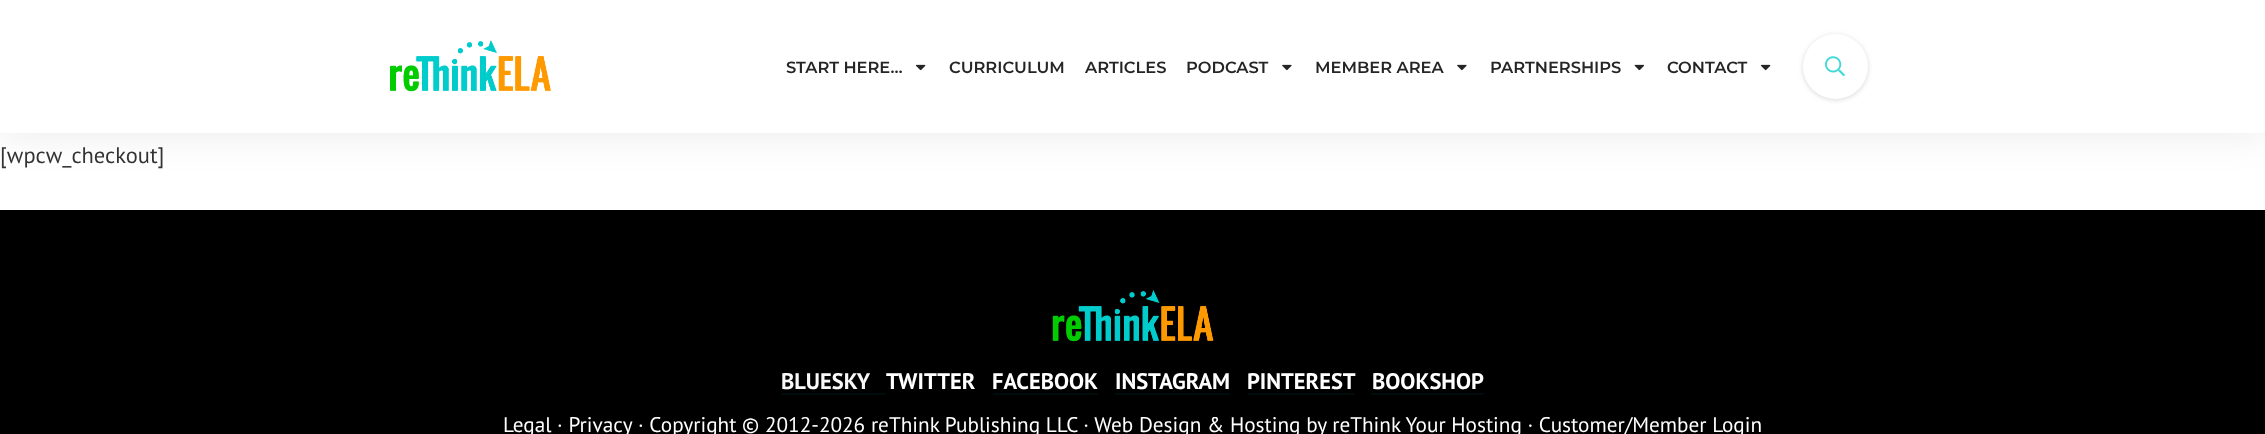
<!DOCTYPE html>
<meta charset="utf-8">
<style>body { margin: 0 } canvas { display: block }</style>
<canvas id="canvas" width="2265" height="434"></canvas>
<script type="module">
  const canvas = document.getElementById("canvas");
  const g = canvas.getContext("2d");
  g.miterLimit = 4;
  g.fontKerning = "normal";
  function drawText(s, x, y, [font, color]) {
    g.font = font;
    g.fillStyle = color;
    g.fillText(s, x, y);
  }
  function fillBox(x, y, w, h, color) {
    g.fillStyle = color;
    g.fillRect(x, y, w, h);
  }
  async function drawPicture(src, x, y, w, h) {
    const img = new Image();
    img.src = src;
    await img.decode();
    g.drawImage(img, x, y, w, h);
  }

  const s1 = ["600 16.25px Montserrat", "#252525"];
  const s2 = ["22.5px PT Sans", "#333333"];
  const s3 = ["bold 22.5px PT Sans", "#F8F8F8"];
  const s4 = ["bold 22.5px PT Sans", "#FFFFFF"];
  const s5 = ["21.25px PT Sans", "#FFFFFF"];

  fillBox(0, 0, 2265, 434, "#FFFFFF");
  g.fillStyle = "rgba(0, 0, 0, 0.08)";
  g.filter = "blur(19px)";
  g.beginPath();
  g.rect(0, 3, 2265, 132);
  g.fill();
  g.filter = "none";
  fillBox(0, 0, 2265, 133, "#FFFFFF");
  await drawPicture("pic1.png", 390, 40, 161, 52);
  drawText("START HERE…", 786, 73, s1);
  await drawPicture("pic2.png", 915, 64, 11, 7);
  drawText("CURRICULUM", 949, 73, s1);
  drawText("ARTICLES", 1085, 73, s1);
  drawText("PODCAST", 1186, 73, s1);
  await drawPicture("pic3.png", 1282, 64, 10, 7);
  drawText("MEMBER AREA", 1315, 73, s1);
  await drawPicture("pic3.png", 1457, 64, 10, 7);
  drawText("PARTNERSHIPS", 1490, 73, s1);
  await drawPicture("pic4.png", 1634, 64, 11, 7);
  drawText("CONTACT", 1667, 73, s1);
  await drawPicture("pic2.png", 1760, 64, 11, 7);
  g.fillStyle = "rgba(0, 0, 0, 0.15)";
  g.filter = "blur(2.5px)";
  g.beginPath();
  g.roundRect(1803, 35, 65, 65, 32.5);
  g.fill();
  g.filter = "none";
  g.fillStyle = "#FFFFFF";
  g.beginPath();
  g.arc(1835.5, 66.5, 32.5, 0, Math.PI * 2);
  g.fill();
  await drawPicture("pic5.png", 1825, 56, 20, 20);
  drawText("[wpcw_checkout]", 0, 163, s2);
  fillBox(0, 210, 2265, 224, "#000000");
  await drawPicture("pic6.png", 1052, 290, 162, 52);
  drawText("BLUESKY", 781, 389, s3);
  fillBox(781, 393, 105, 2, "#000C0C");
  drawText("TWITTER", 886, 389, s4);
  drawText("FACEBOOK", 992, 389, s4);
  fillBox(993, 393, 105, 2, "#000C0C");
  drawText("INSTAGRAM", 1115, 389, s4);
  fillBox(1115, 393, 115, 2, "#000C0C");
  drawText("PINTEREST", 1247, 389, s4);
  fillBox(1248, 393, 107, 2, "#000C0C");
  drawText("BOOKSHOP", 1372, 389, s4);
  fillBox(1371, 393, 113, 2, "#000C0C");
  drawText("Legal · Privacy", 503, 432, s5);
  drawText("· Copyright © 2012-2026 reThink Publishing LLC · Web Design & Hosting by reThink Your Hosting · Customer/Member Login", 638, 432, s5);
</script>
